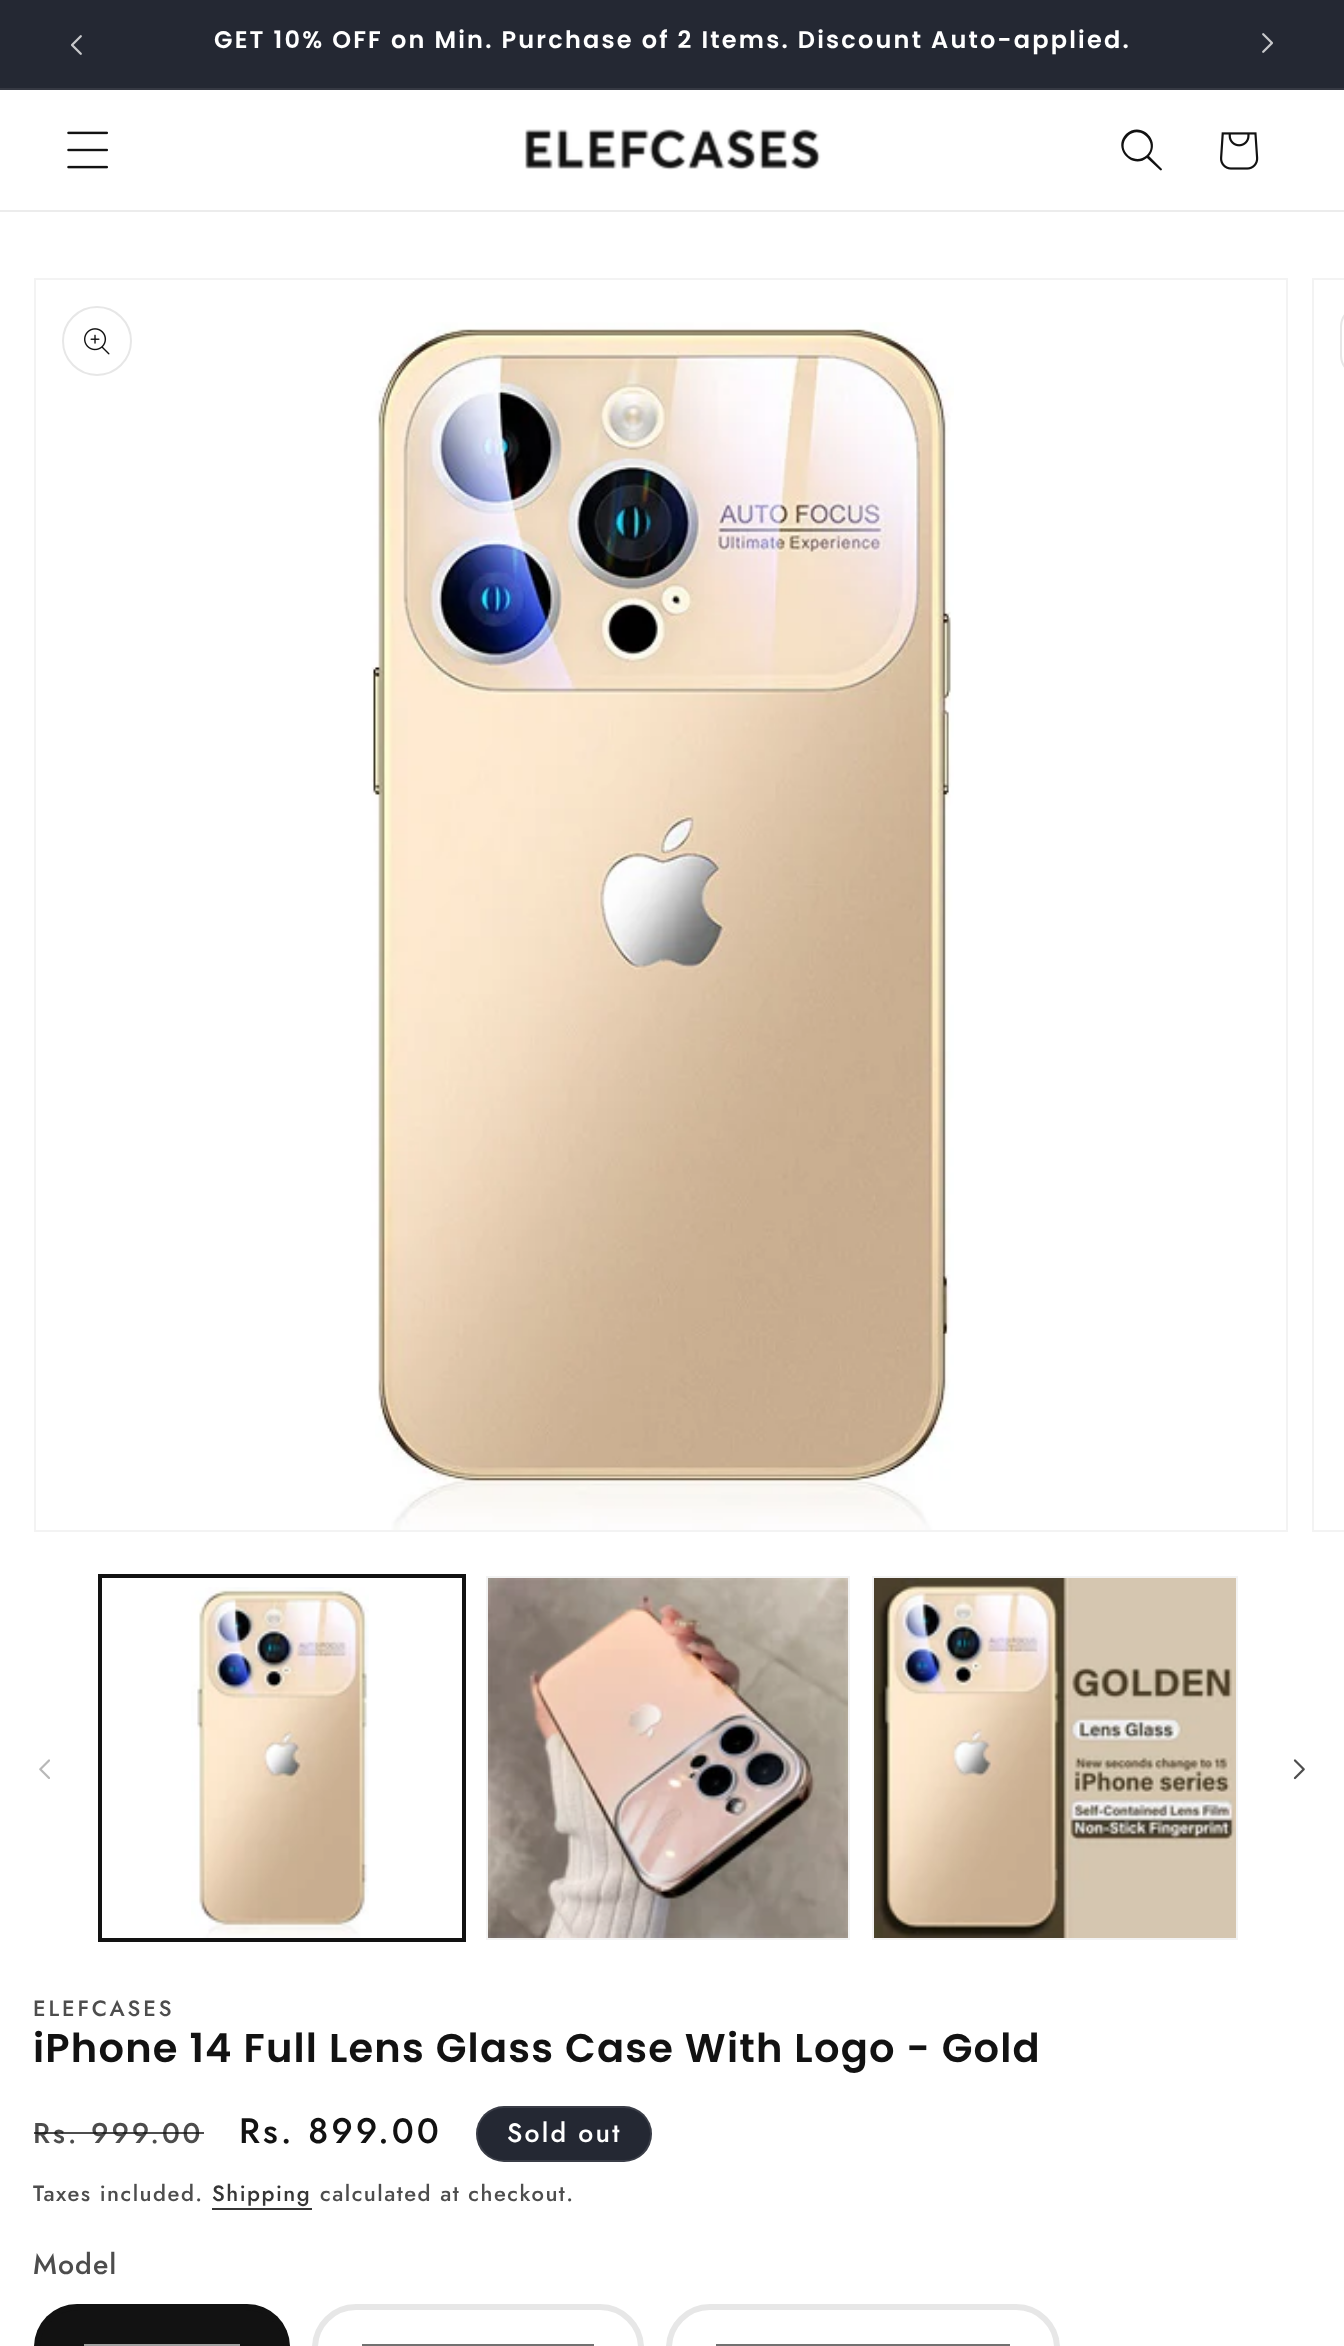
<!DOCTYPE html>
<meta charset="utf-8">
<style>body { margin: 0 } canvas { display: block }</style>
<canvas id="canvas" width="1344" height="2346"></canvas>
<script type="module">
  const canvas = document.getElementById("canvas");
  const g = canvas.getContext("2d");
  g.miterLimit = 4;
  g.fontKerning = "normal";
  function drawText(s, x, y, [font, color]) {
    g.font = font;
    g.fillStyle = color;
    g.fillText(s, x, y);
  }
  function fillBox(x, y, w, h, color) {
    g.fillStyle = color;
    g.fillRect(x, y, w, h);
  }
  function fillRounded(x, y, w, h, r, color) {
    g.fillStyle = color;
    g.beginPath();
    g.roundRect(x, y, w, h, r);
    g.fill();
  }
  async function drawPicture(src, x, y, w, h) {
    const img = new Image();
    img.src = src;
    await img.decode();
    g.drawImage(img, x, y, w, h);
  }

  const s1 = ["600 24px Poppins", "#FFFFFF"];
  const s2 = ["500 22px Jost", "#4D4D4D"];
  const s3 = ["600 40px Poppins", "#121212"];
  const s4 = ["500 28.5px Jost", "#4D4D4D"];
  const s5 = ["500 35.25px Jost", "#121212"];
  const s6 = ["500 26.5px Jost", "#FFFFFF"];
  const s7 = ["500 22px Jost", "#363636"];

  fillBox(0, 0, 1344, 2346, "#FFFFFF");
  fillBox(0, 0, 1344, 88, "#242833");
  fillBox(0, 88, 1344, 2, "#363943");
  await drawPicture("pic1.png", 71, 35, 11, 20);
  g.letterSpacing = "2.2px";
  drawText("GET 10% OFF on Min. Purchase of 2 Items. Discount Auto-applied.", 214, 48, s1);
  await drawPicture("pic2.png", 1262, 33, 11, 20);
  fillBox(0, 210, 1344, 2, "#ECECEC");
  await drawPicture("pic3.png", 67, 131, 41, 38);
  await drawPicture("pic4.png", 525, 129, 296, 41);
  g.fillStyle = "#121212";
  g.beginPath();
  g.moveTo(1147, 155);
  g.bezierCurveTo(1134, 167, 1115, 149, 1128, 136);
  g.bezierCurveTo(1140, 124, 1159, 143, 1147, 155);
  g.moveTo(1147, 158);
  g.bezierCurveTo(1132, 170, 1112, 148, 1126, 134);
  g.bezierCurveTo(1141, 120, 1162, 141, 1149, 156);
  g.lineTo(1162, 169);
  g.bezierCurveTo(1162, 170, 1161, 171, 1160, 170);
  g.closePath();
  g.fill("evenodd");
  await drawPicture("pic5.png", 1220, 132, 39, 38);
  g.strokeStyle = "#F3F3F3";
  g.lineWidth = 2;
  g.strokeRect(35, 279, 1252, 1252);
  g.beginPath();
  g.arc(97, 341, 34, 0, Math.PI * 2);
  g.strokeStyle = "#E7E7E7";
  g.stroke();
  await drawPicture("pic6.png", 84, 328, 26, 27);
  await drawPicture("pic7.png", 371, 322, 583, 1208);
  g.strokeStyle = "#F3F3F3";
  g.strokeRect(1313, 279, 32, 1252);
  g.beginPath();
  g.roundRect(1341, 307, 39, 68, 34);
  g.strokeStyle = "#E7E7E7";
  g.stroke();
  await drawPicture("pic8.png", 39, 1759, 11, 20);
  g.strokeStyle = "#121212";
  g.strokeRect(99, 1575, 366, 366);
  g.strokeRect(101, 1577, 362, 362);
  await drawPicture("pic9.png", 191, 1587, 178, 351);
  g.strokeStyle = "#F3F3F3";
  g.strokeRect(487, 1577, 362, 362);
  await drawPicture("pic10.png", 488, 1578, 360, 360);
  g.strokeRect(873, 1577, 364, 362);
  await drawPicture("pic11.png", 874, 1578, 362, 360);
  await drawPicture("pic12.png", 1293, 1759, 12, 21);
  g.letterSpacing = "2.9px";
  drawText("ELEFCASES", 33, 2016, s2);
  g.letterSpacing = "1.2px";
  drawText("iPhone 14 Full Lens Glass Case With Logo - Gold", 33, 2062, s3);
  g.letterSpacing = "2.9px";
  drawText("Rs. 999.00", 33, 2143, s4);
  fillBox(34, 2132, 170, 2, "rgba(18, 18, 18, 0.75)");
  drawText("Rs. 899.00", 239, 2143, s5);
  fillRounded(476, 2106, 176, 56, 28, "#242833");
  g.beginPath();
  g.roundRect(477, 2107, 174, 54, 27);
  g.strokeStyle = "rgba(255, 255, 255, 0.1)";
  g.stroke();
  g.letterSpacing = "2.2px";
  drawText("Sold out", 507, 2142, s6);
  g.letterSpacing = "1.5px";
  drawText("Taxes included.", 33, 2201, s2);
  drawText("Shipping", 212, 2201, s7);
  fillBox(212, 2208, 100, 2, "#363636");
  drawText("calculated at checkout.", 320, 2201, s2);
  g.letterSpacing = "1px";
  drawText("Model", 33, 2274, s4);
  fillRounded(34, 2304, 256, 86, 44, "#121212");
  g.beginPath();
  g.roundRect(37, 2307, 250, 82, 41);
  g.strokeStyle = "rgba(18, 18, 18, 0.1)";
  g.lineWidth = 6;
  g.stroke();
  fillBox(84, 2344, 156, 2, "rgba(255, 255, 255, 0.6)");
  g.beginPath();
  g.roundRect(315, 2307, 326, 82, 41);
  g.strokeStyle = "#E7E7E7";
  g.stroke();
  fillBox(362, 2344, 232, 2, "rgba(18, 18, 18, 0.6)");
  g.beginPath();
  g.roundRect(669, 2307, 388, 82, 41);
  g.stroke();
  fillBox(716, 2344, 294, 2, "rgba(18, 18, 18, 0.6)");
</script>
